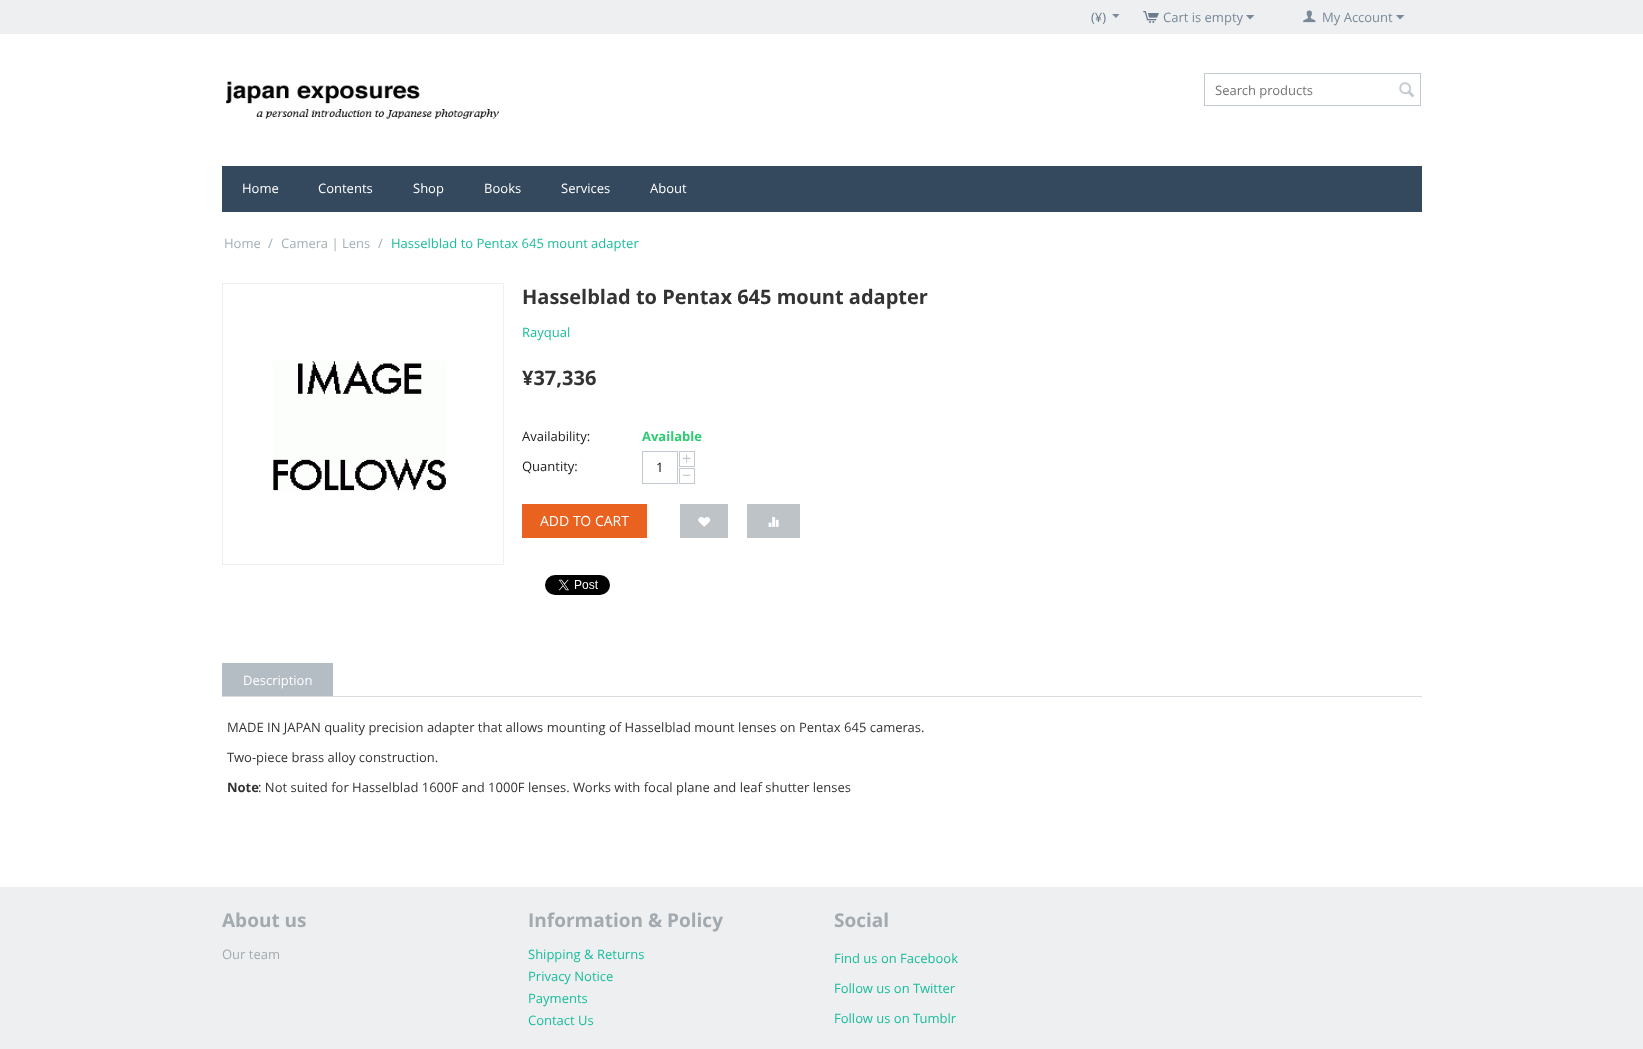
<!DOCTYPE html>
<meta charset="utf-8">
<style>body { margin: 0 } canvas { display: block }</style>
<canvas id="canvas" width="1643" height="1049"></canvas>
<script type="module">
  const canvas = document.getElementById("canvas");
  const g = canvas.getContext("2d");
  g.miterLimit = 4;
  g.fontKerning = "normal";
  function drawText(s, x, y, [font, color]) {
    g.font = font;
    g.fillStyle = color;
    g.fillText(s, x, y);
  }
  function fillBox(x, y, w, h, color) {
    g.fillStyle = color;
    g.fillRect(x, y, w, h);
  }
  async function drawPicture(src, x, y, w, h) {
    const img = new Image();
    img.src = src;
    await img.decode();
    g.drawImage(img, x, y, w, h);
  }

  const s1 = ["13px Open Sans", "#6D7C8C"];
  const s2 = ["13px Open Sans", "#7A8998"];
  const s3 = ["13px Open Sans", "#737373"];
  const s4 = ["13px Open Sans", "#FFFFFF"];
  const s5 = ["13px Open Sans", "#A5AFB9"];
  const s6 = ["13px Open Sans", "#1ABC9C"];
  const s7 = ["bold 20px Open Sans", "#333333"];
  const s8 = ["13px Open Sans", "#1A1A1A"];
  const s9 = ["bold 13px Open Sans", "#2ECC71"];
  const s10 = ["16px Open Sans", "#C2C9D0"];
  const s11 = ["13px Open Sans", "#000000"];
  const s12 = ["14px Open Sans", "#FFFFFF"];
  const s13 = ["13px Open Sans", "#333333"];
  const s14 = ["bold 13px Open Sans", "#333333"];
  const s15 = ["bold 19px Open Sans", "#A3AAAF"];
  const s16 = ["13px Open Sans", "#A3AAAF"];

  fillBox(0, 0, 1643, 1049, "#FFFFFF");
  fillBox(0, 0, 1643, 34, "#EDEFF1");
  drawText("(¥)", 1091, 22, s1);
  g.fillStyle = "#7A8998";
  g.beginPath();
  g.moveTo(1116, 18);
  g.lineTo(1112, 14);
  g.lineTo(1119.5, 14);
  g.closePath();
  g.fill();
  await drawPicture("pic1.png", 1143, 11, 16, 12);
  drawText("Cart is empty", 1163, 22, s2);
  g.beginPath();
  g.moveTo(1250, 19.5);
  g.lineTo(1246, 15);
  g.lineTo(1254.5, 15);
  g.closePath();
  g.fill();
  await drawPicture("pic2.png", 1303, 10, 13, 13);
  drawText("My Account", 1322, 22, s2);
  g.beginPath();
  g.moveTo(1400, 19.5);
  g.lineTo(1396, 15);
  g.lineTo(1404.5, 15);
  g.closePath();
  g.fill();
  await drawPicture("pic3.png", 226, 81, 273, 38);
  g.strokeStyle = "#C2C9D0";
  g.strokeRect(1204.5, 73.5, 216, 32);
  drawText("Search products", 1215, 95, s3);
  await drawPicture("pic4.png", 1399, 82, 16, 16);
  fillBox(222, 166, 1200, 46, "#34495E");
  drawText("Home", 242, 193, s4);
  drawText("Contents", 318, 193, s4);
  drawText("Shop", 413, 193, s4);
  drawText("Books", 484, 193, s4);
  drawText("Services", 561, 193, s4);
  drawText("About", 650, 193, s4);
  drawText("Home", 224, 248, s5);
  drawText("/", 268, 248, s5);
  drawText("Camera | Lens", 281, 248, s5);
  drawText("/", 378, 248, s5);
  drawText("Hasselblad to Pentax 645 mount adapter", 391, 248, s6);
  g.strokeStyle = "#EDEFF1";
  g.strokeRect(222.5, 283.5, 281, 281);
  await drawPicture("pic5.png", 273, 361, 173, 130);
  drawText("Hasselblad to Pentax 645 mount adapter", 522, 304, s7);
  drawText("Rayqual", 522, 337, s6);
  drawText("¥37,336", 522, 385, s7);
  drawText("Availability:", 522, 441, s8);
  drawText("Available", 642, 441, s9);
  drawText("Quantity:", 522, 471, s8);
  g.strokeStyle = "#C2C9D0";
  g.strokeRect(679.5, 451.5, 15, 15);
  drawText("+", 682, 464, s10);
  g.strokeRect(642.5, 451.5, 35, 32);
  drawText("1", 656, 472, s11);
  g.strokeRect(679.5, 468.5, 15, 15);
  drawText("−", 682, 481, s10);
  fillBox(522, 504, 125, 34, "#EA621F");
  drawText("ADD TO CART", 540, 526, s12);
  fillBox(680, 504, 48, 34, "#BDC3C7");
  await drawPicture("pic6.png", 698, 517, 13, 10);
  fillBox(747, 504, 53, 34, "#BDC3C7");
  await drawPicture("pic7.png", 768, 516, 11, 11);
  await drawPicture("pic8.png", 545, 575, 65, 20);
  fillBox(222, 696, 1200, 1, "#D9DDE1");
  fillBox(222, 663, 111, 33, "#B4BCC4");
  drawText("Description", 243, 685, s4);
  drawText("MADE IN JAPAN quality precision adapter that allows mounting of Hasselblad mount lenses on Pentax 645 cameras.", 227, 732, s13);
  drawText("Two-piece brass alloy construction.", 227, 762, s13);
  drawText("Note", 227, 792, s14);
  drawText(": Not suited for Hasselblad 1600F and 1000F lenses. Works with focal plane and leaf shutter lenses", 258, 792, s13);
  fillBox(0, 887, 1643, 162, "#EDEFF1");
  drawText("About us", 222, 927, s15);
  drawText("Our team", 222, 959, s16);
  drawText("Information & Policy", 528, 927, s15);
  drawText("Shipping & Returns", 528, 959, s6);
  drawText("Privacy Notice", 528, 981, s6);
  drawText("Payments", 528, 1003, s6);
  drawText("Contact Us", 528, 1025, s6);
  drawText("Social", 834, 927, s15);
  drawText("Find us on Facebook", 834, 963, s6);
  drawText("Follow us on Twitter", 834, 993, s6);
  drawText("Follow us on Tumblr", 834, 1023, s6);
</script>
